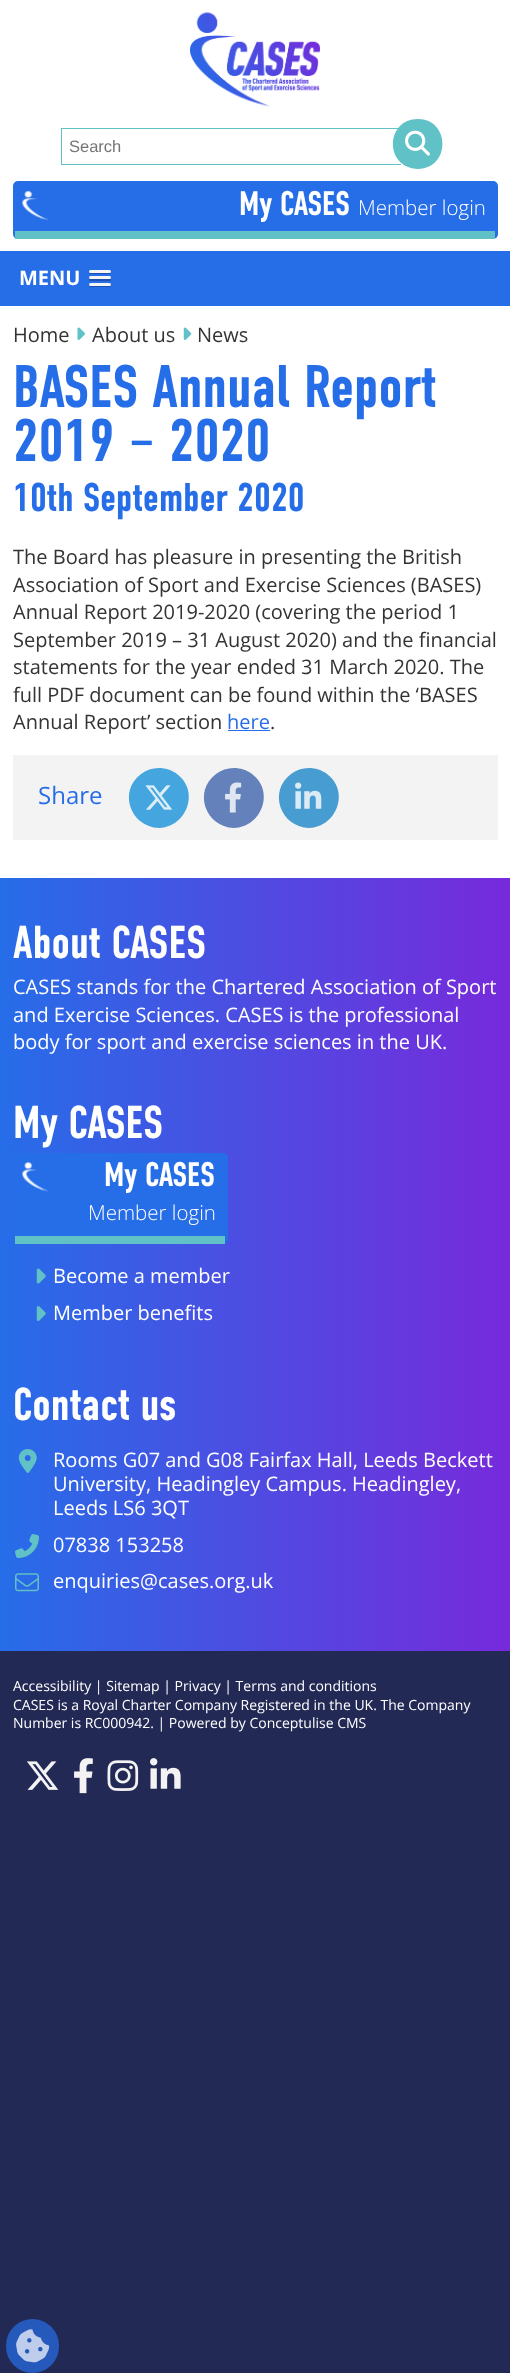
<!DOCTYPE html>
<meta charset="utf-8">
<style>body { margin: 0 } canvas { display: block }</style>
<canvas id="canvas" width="510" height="2373"></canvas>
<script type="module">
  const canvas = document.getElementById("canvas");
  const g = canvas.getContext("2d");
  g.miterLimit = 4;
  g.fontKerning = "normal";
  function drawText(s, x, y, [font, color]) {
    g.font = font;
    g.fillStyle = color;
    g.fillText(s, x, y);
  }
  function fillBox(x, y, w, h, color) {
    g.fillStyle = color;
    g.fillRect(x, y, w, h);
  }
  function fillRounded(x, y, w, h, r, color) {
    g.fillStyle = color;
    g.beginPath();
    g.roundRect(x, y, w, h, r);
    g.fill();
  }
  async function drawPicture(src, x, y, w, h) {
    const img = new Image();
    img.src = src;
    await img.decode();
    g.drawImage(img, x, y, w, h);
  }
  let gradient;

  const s1 = ["16.5px Liberation Sans", "#757575"];
  const s2 = ["600 34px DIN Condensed", "#FFFFFF"];
  const s3 = ["300 20.5px Open Sans", "#FFFFFF"];
  const s4 = ["bold 20px Open Sans", "#FFFFFF"];
  const s5 = ["20px Open Sans", "#333333"];
  const s6 = ["600 60px DIN Condensed", "#266DE8"];
  const s7 = ["600 40px DIN Condensed", "#266DE8"];
  const s8 = ["20px Open Sans", "#266DE8"];
  const s9 = ["24px Open Sans", "#266DE8"];
  const s10 = ["600 46px DIN Condensed", "#FFFFFF"];
  const s11 = ["20px Open Sans", "#FFFFFF"];
  const s12 = ["14px Open Sans", "#FFFFFF"];

  fillBox(0, 0, 510, 2373, "#232955");
  fillBox(0, 0, 510, 251, "#FFFFFF");
  await drawPicture("pic1.png", 190, 12, 130, 95);
  fillBox(61, 128, 340, 1, "#60C1C7");
  fillBox(61, 164, 340, 1, "#60C1C7");
  fillBox(61, 128, 1, 37, "#60C1C7");
  drawText("Search", 69, 152, s1);
  g.fillStyle = "#60C1C7";
  g.beginPath();
  g.moveTo(418, 169);
  g.bezierCurveTo(451, 168, 450, 119, 418, 119);
  g.bezierCurveTo(385, 119, 384, 168, 418, 169);
  g.closePath();
  g.fill();
  await drawPicture("pic2.png", 405, 130, 25, 26);
  fillRounded(13, 181, 485, 58, 5, "#266DE8");
  await drawPicture("pic3.png", 22, 191, 27, 30);
  fillBox(15, 231, 480, 8, "#60C1C7");
  drawText("My CASES", 239, 215, s2);
  drawText("Member login", 358, 215, s3);
  fillBox(0, 251, 510, 55, "#266DE8");
  drawText("MENU", 19, 285, s4);
  g.fillStyle = "#1D52AE";
  g.beginPath();
  g.moveTo(89, 272);
  g.bezierCurveTo(88.5, 274.5, 93, 274, 93.5, 274);
  g.lineTo(106.5, 274);
  g.bezierCurveTo(107, 274, 111.5, 274.5, 111, 272);
  g.bezierCurveTo(110, 273, 90, 273, 89, 272);
  g.closePath();
  g.fill();
  fillRounded(89, 270, 22, 3, 1.5, "#F5F5F5");
  g.fillStyle = "#1D52AE";
  g.beginPath();
  g.moveTo(89.5, 278.5);
  g.lineTo(89, 280);
  g.bezierCurveTo(89.5, 281.5, 92.5, 281, 93.5, 281);
  g.lineTo(106.5, 281);
  g.bezierCurveTo(107.5, 281, 110.5, 281.5, 111, 280);
  g.lineTo(110.5, 278.5);
  g.closePath();
  g.fill();
  fillRounded(89, 276, 22, 3, 1.5, "#F5F5F5");
  g.fillStyle = "#1D52AE";
  g.beginPath();
  g.moveTo(89, 284.5);
  g.bezierCurveTo(87.5, 287.5, 93, 287, 93.5, 287);
  g.lineTo(106.5, 287);
  g.bezierCurveTo(107, 287, 112.5, 287.5, 111, 284.5);
  g.bezierCurveTo(110, 285, 90, 285, 89, 284.5);
  g.closePath();
  g.fill();
  fillRounded(89, 283, 22, 3, 1.5, "#F5F5F5");
  fillBox(0, 306, 510, 572, "#FFFFFF");
  drawText("Home", 13, 342, s5);
  await drawPicture("pic4.png", 77, 327, 8, 13);
  drawText("About us", 92, 342, s5);
  await drawPicture("pic5.png", 183, 327, 9, 13);
  drawText("News", 197, 342, s5);
  drawText("BASES Annual Report", 13, 407, s6);
  drawText("2019 – 2020", 13, 461, s6);
  drawText("10th September 2020", 13, 511, s7);
  g.save();
  g.beginPath();
  g.rect(13, 523, 485, 232);
  g.clip();
  drawText("The Board has pleasure in presenting the British", 13, 564, s5);
  g.restore();
  drawText("Association of Sport and Exercise Sciences (BASES)", 13, 592, s5);
  drawText("Annual Report 2019-2020 (covering the period 1", 13, 619, s5);
  drawText("September 2019 – 31 August 2020) and the financial", 13, 647, s5);
  drawText("statements for the year ended 31 March 2020. The", 13, 674, s5);
  drawText("full PDF document can be found within the ‘BASES", 13, 702, s5);
  drawText("Annual Report’ section", 13, 729, s5);
  drawText("here", 227, 729, s8);
  fillBox(228, 730, 42, 1, "#266DE8");
  drawText(".", 270, 729, s5);
  fillBox(13, 755, 485, 85, "#F3F3F3");
  drawText("Share", 38, 804, s9);
  g.fillStyle = "#45A5DF";
  g.beginPath();
  g.moveTo(159, 828);
  g.bezierCurveTo(187, 827, 200, 791, 177, 774);
  g.bezierCurveTo(172, 770, 165, 768, 159, 768);
  g.bezierCurveTo(152, 768, 146, 770, 141, 774);
  g.bezierCurveTo(118, 791, 130, 827, 159, 828);
  g.closePath();
  g.fill();
  await drawPicture("pic6.png", 145, 785, 28, 25);
  g.fillStyle = "#6481BB";
  g.beginPath();
  g.moveTo(234, 828);
  g.bezierCurveTo(262, 827, 275, 791, 252, 774);
  g.bezierCurveTo(247, 770, 240, 768, 234, 768);
  g.bezierCurveTo(227, 768, 221, 770, 216, 774);
  g.bezierCurveTo(193, 791, 205, 827, 234, 828);
  g.closePath();
  g.fill();
  await drawPicture("pic7.png", 225, 782, 17, 31);
  g.fillStyle = "#479CD1";
  g.beginPath();
  g.moveTo(309, 828);
  g.bezierCurveTo(337, 827, 350, 791, 327, 774);
  g.bezierCurveTo(322, 770, 315, 768, 309, 768);
  g.bezierCurveTo(302, 768, 296, 770, 291, 774);
  g.bezierCurveTo(268, 791, 280, 827, 309, 828);
  g.closePath();
  g.fill();
  await drawPicture("pic8.png", 295, 782, 27, 27);
  gradient = g.createLinearGradient(0, 1264, 510, 1264);
  gradient.addColorStop(0, "#266DE8");
  gradient.addColorStop(1, "#772ADB");
  g.fillStyle = gradient;
  g.fillRect(0, 878, 510, 773);
  drawText("About CASES", 13, 958, s10);
  drawText("CASES stands for the Chartered Association of Sport", 13, 994, s11);
  drawText("and Exercise Sciences. CASES is the professional", 13, 1022, s11);
  drawText("body for sport and exercise sciences in the UK.", 13, 1049, s11);
  drawText("My CASES", 13, 1138, s10);
  fillRounded(13, 1153, 215, 91, 5, "#266DE8");
  await drawPicture("pic9.png", 22, 1162, 27, 30);
  fillBox(15, 1236, 210, 8, "#60C1C7");
  drawText("My CASES", 104, 1186, s2);
  drawText("Member login", 88, 1220, s3);
  await drawPicture("pic10.png", 36, 1268, 10, 16);
  drawText("Become a member", 53, 1283, s11);
  await drawPicture("pic11.png", 36, 1306, 10, 15);
  drawText("Member benefits", 53, 1320, s11);
  drawText("Contact us", 13, 1420, s10);
  await drawPicture("pic12.png", 18, 1449, 19, 24);
  drawText("Rooms G07 and G08 Fairfax Hall, Leeds Beckett", 53, 1467, s11);
  drawText("University, Headingley Campus. Headingley,", 53, 1491, s11);
  drawText("Leeds LS6 3QT", 53, 1515, s11);
  await drawPicture("pic13.png", 15, 1534, 24, 24);
  drawText("07838 153258", 53, 1552, s11);
  await drawPicture("pic14.png", 15, 1573, 24, 19);
  drawText("enquiries@cases.org.uk", 53, 1588, s11);
  drawText("Accessibility | Sitemap | Privacy | Terms and conditions", 13, 1691, s12);
  drawText("CASES is a Royal Charter Company Registered in the UK. The Company", 13, 1710, s12);
  drawText("Number is RC000942. | Powered by Conceptulise CMS", 13, 1728, s12);
  await drawPicture("pic15.png", 27, 1761, 32, 29);
  await drawPicture("pic16.png", 74, 1758, 19, 36);
  await drawPicture("pic17.png", 107, 1760, 32, 31);
  await drawPicture("pic18.png", 150, 1758, 31, 31);
  fillRounded(6, 2319, 53, 54, 26.5, "#2559BC");
  await drawPicture("pic19.png", 16, 2329, 34, 34);
</script>
